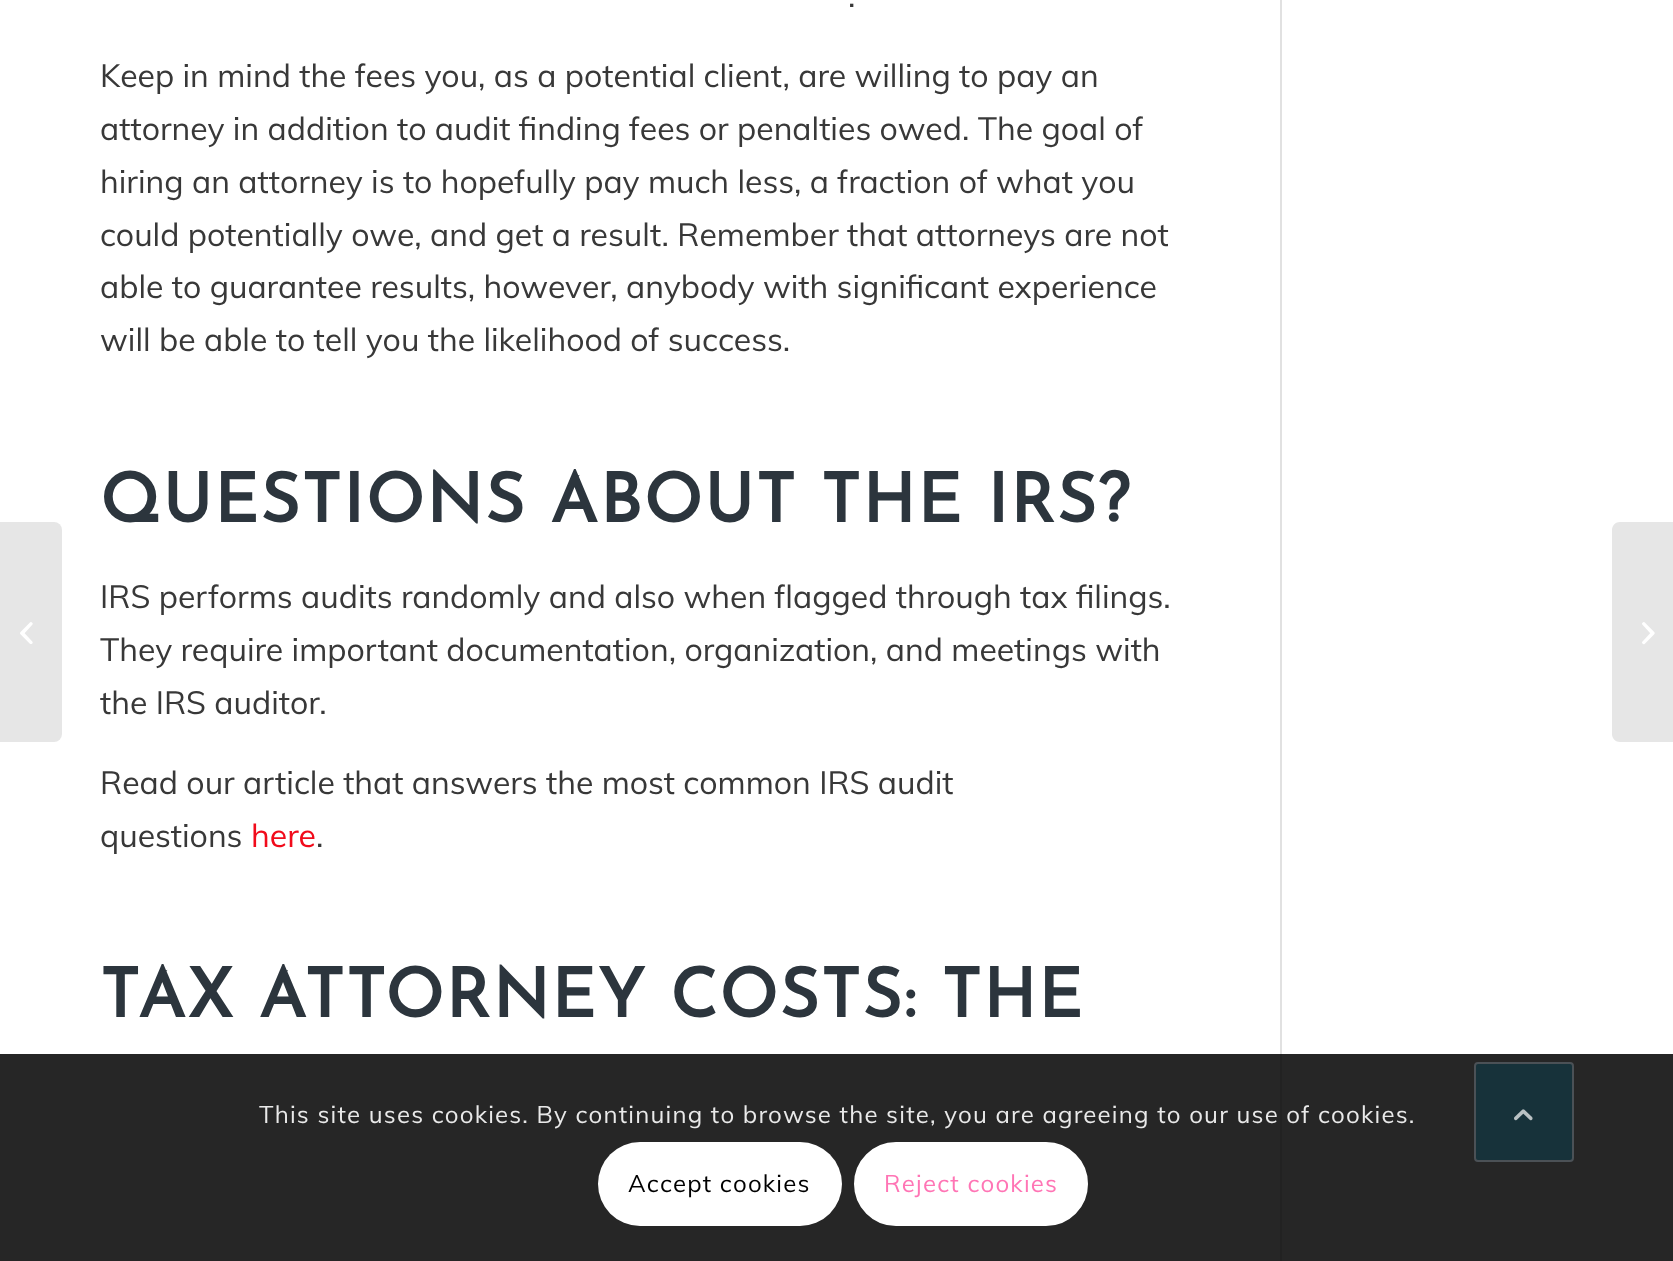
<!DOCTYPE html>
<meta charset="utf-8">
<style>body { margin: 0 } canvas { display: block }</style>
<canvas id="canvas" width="1673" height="1261"></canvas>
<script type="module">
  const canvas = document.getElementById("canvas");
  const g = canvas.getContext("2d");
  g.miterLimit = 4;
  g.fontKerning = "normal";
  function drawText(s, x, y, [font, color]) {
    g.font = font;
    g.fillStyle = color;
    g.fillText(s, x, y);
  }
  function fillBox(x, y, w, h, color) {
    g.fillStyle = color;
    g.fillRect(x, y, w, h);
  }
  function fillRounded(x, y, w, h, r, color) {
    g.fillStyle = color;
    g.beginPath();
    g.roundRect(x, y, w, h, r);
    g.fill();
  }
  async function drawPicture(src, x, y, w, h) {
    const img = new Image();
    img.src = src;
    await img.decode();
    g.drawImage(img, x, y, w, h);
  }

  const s1 = ["32px Muli", "#383838"];
  const s2 = ["bold 68px Josefin Sans", "#2C353D"];
  const s3 = ["32px Muli", "#F10B1B"];
  const s4 = ["24px Muli", "#E9E9E9"];
  const s5 = ["24px Muli", "#000000"];
  const s6 = ["24px Muli", "#FF75B5"];

  fillBox(0, 0, 1673, 1261, "#FFFFFF");
  g.fillStyle = "#E6E6E6";
  g.beginPath();
  g.roundRect(0, 522, 62, 220, [0, 8, 8, 0]);
  g.fill();
  await drawPicture("pic1.png", 20, 622, 13, 22);
  fillBox(1280, 0, 2, 1261, "#E1E1E1");
  drawText(".", 848, 7, s1);
  drawText("Keep in mind the fees you, as a potential client, are willing to pay an", 100, 87, s1);
  drawText("attorney in addition to audit finding fees or penalties owed. The goal of", 100, 140, s1);
  drawText("hiring an attorney is to hopefully pay much less, a fraction of what you", 100, 193, s1);
  drawText("could potentially owe, and get a result. Remember that attorneys are not", 100, 246, s1);
  drawText("able to guarantee results, however, anybody with significant experience", 100, 298, s1);
  drawText("will be able to tell you the likelihood of success.", 100, 351, s1);
  g.letterSpacing = "2px";
  drawText("QUESTIONS ABOUT THE IRS?", 100, 522, s2);
  g.letterSpacing = "0px";
  drawText("IRS performs audits randomly and also when flagged through tax filings.", 100, 608, s1);
  drawText("They require important documentation, organization, and meetings with", 100, 661, s1);
  drawText("the IRS auditor.", 100, 714, s1);
  drawText("Read our article that answers the most common IRS audit", 100, 794, s1);
  drawText("questions", 100, 847, s1);
  drawText("here", 251, 847, s3);
  drawText(".", 316, 847, s1);
  g.letterSpacing = "2px";
  drawText("TAX ATTORNEY COSTS: THE", 100, 1017, s2);
  g.fillStyle = "#E6E6E6";
  g.beginPath();
  g.moveTo(1620, 522);
  g.lineTo(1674, 522);
  g.lineTo(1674, 742);
  g.lineTo(1620, 742);
  g.bezierCurveTo(1615.5, 742, 1612, 738.5, 1612, 734);
  g.lineTo(1612, 530);
  g.bezierCurveTo(1612, 525.5, 1615.5, 522, 1620, 522);
  g.closePath();
  g.fill();
  await drawPicture("pic2.png", 1642, 622, 13, 23);
  fillBox(0, 1054, 1673, 207, "rgba(0, 0, 0, 0.85)");
  g.letterSpacing = "1.2px";
  drawText("This site uses cookies. By continuing to browse the site, you are agreeing to our use of cookies.", 259, 1123, s4);
  fillRounded(598, 1142, 244, 84, 42, "#FFFFFF");
  drawText("Accept cookies", 628, 1192, s5);
  g.fillStyle = "#FFFFFF";
  g.beginPath();
  g.roundRect(856, 1144, 230, 80, 40);
  g.fill();
  g.strokeStyle = "#FFFFFF";
  g.lineWidth = 4;
  g.stroke();
  drawText("Reject cookies", 884, 1192, s6);
  g.fillStyle = "#17323A";
  g.beginPath();
  g.roundRect(1475, 1063, 98, 98, 3);
  g.fill();
  g.strokeStyle = "#4B5156";
  g.lineWidth = 2;
  g.stroke();
  await drawPicture("pic3.png", 1514, 1109, 19, 12);
</script>
